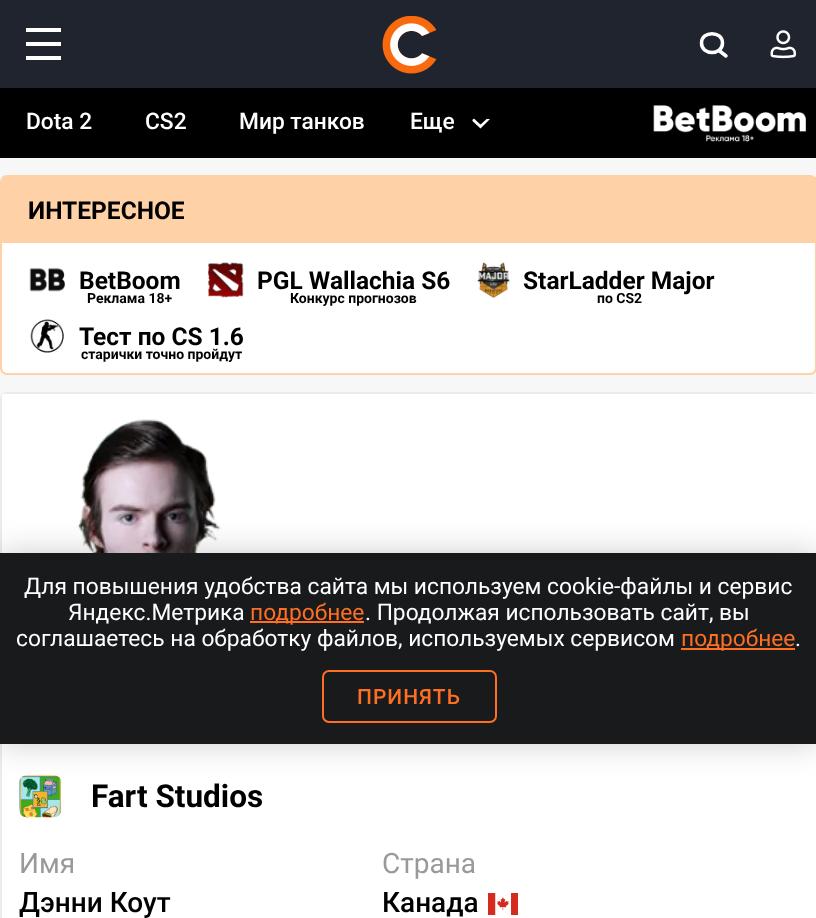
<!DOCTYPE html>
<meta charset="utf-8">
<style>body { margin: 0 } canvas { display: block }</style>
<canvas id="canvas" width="816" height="918"></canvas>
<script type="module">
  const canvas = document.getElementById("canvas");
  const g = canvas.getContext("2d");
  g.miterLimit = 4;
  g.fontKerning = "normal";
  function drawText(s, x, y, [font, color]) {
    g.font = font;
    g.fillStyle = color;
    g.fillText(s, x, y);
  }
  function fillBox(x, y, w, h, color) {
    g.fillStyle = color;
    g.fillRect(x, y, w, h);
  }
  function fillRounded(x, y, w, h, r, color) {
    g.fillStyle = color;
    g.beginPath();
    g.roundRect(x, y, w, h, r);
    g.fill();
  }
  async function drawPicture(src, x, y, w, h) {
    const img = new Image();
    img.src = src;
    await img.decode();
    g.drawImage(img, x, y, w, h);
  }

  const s1 = ["500 22.75px Roboto", "#FFFFFF"];
  const s2 = ["bold 24.5px Roboto", "#000000"];
  const s3 = ["bold 14px Roboto", "#000000"];
  const s4 = ["bold 31.5px Roboto", "#000000"];
  const s5 = ["28px Roboto", "#999999"];
  const s6 = ["500 28px Roboto", "#000000"];
  const s7 = ["22.75px Roboto", "#FFFFFF"];
  const s8 = ["22.75px Roboto", "#FF6F22"];
  const s9 = ["500 21px Roboto", "#FF6F22"];

  fillBox(0, 0, 816, 918, "#20242F");
  fillBox(26, 28, 35, 4, "#FFFFFF");
  fillBox(26, 42, 35, 4, "#FFFFFF");
  fillBox(26, 56, 35, 4, "#FFFFFF");
  await drawPicture("pic1.png", 382, 16, 55, 58);
  g.beginPath();
  g.moveTo(722.5, 43);
  g.bezierCurveTo(722.5, 55.5, 701.5, 55.5, 701.5, 43);
  g.bezierCurveTo(701.5, 30.5, 722.5, 30.5, 722.5, 43);
  g.closePath();
  g.strokeStyle = "#FFFFFF";
  g.lineWidth = 3.5;
  g.stroke();
  g.beginPath();
  g.moveTo(719, 50.5);
  g.lineTo(726, 56);
  g.lineCap = "round";
  g.stroke();
  await drawPicture("pic2.png", 770, 30, 26, 29);
  fillBox(0, 88, 816, 70, "#000000");
  drawText("Dota 2", 26, 129, s1);
  drawText("CS2", 145, 129, s1);
  drawText("Мир танков", 239, 129, s1);
  drawText("Еще", 410, 129, s1);
  g.beginPath();
  g.moveTo(480.5, 127);
  g.lineTo(487.5, 120);
  g.lineTo(487, 120);
  g.lineTo(480.5, 126);
  g.lineTo(474, 120);
  g.bezierCurveTo(474, 119.5, 473.5, 120, 473.5, 120.5);
  g.closePath();
  g.lineWidth = 2.1;
  g.lineCap = "butt";
  g.stroke();
  await drawPicture("pic3.png", 653, 105, 153, 37);
  fillBox(0, 158, 816, 241, "#F7F7F7");
  g.fillStyle = "#FFFFFF";
  g.beginPath();
  g.roundRect(1, 176, 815, 198, 6);
  g.fill();
  g.strokeStyle = "#FFD1A6";
  g.lineWidth = 2;
  g.stroke();
  fillBox(2, 177, 814, 66, "#FFD1A6");
  drawText("ИНТЕРЕСНОЕ", 28, 219, s2);
  await drawPicture("pic4.png", 29, 267, 36, 25);
  drawText("BetBoom", 79, 289, s2);
  drawText("Реклама 18+", 87, 303, s3);
  await drawPicture("pic5.png", 208, 262, 36, 36);
  drawText("PGL Wallachia S6", 257, 289, s2);
  drawText("Конкурс прогнозов", 290, 303, s3);
  await drawPicture("pic6.png", 477, 262, 33, 36);
  drawText("StarLadder Major", 523, 289, s2);
  drawText("по CS2", 597, 303, s3);
  await drawPicture("pic7.png", 30, 319, 34, 34);
  drawText("Тест по CS 1.6", 79, 345, s2);
  drawText("старички точно пройдут", 81, 359, s3);
  fillRounded(0, 392, 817, 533, 7, "#FFFFFF");
  g.beginPath();
  g.roundRect(1, 393, 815, 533, 6);
  g.strokeStyle = "rgba(0, 0, 0, 0.08)";
  g.stroke();
  fillBox(2, 394, 814, 524, "#FFFFFF");
  await drawPicture("pic8.png", 77, 419, 144, 134);
  await drawPicture("pic9.png", 19, 775, 43, 43);
  drawText("Fart Studios", 91, 807, s4);
  drawText("Имя", 19, 873, s5);
  drawText("Дэнни Коут", 19, 912, s6);
  drawText("Страна", 382, 873, s5);
  drawText("Канада", 382, 912, s6);
  await drawPicture("pic10.png", 488, 893, 30, 22);
  g.fillStyle = "rgba(0, 0, 0, 0.2)";
  g.filter = "blur(16px)";
  g.beginPath();
  g.rect(0, 553, 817, 191);
  g.fill();
  g.filter = "none";
  fillBox(0, 553, 816, 191, "#181A1C");
  drawText("Для повышения удобства сайта мы используем cookie-файлы и сервис", 24, 594, s7);
  drawText("Яндекс.Метрика", 68, 620, s7);
  fillBox(250, 621, 114, 2, "#FF6F22");
  drawText("подробнее", 250, 620, s8);
  drawText(". Продолжая использовать сайт, вы", 365, 620, s7);
  drawText("соглашаетесь на обработку файлов, используемых сервисом", 16, 646, s7);
  fillBox(681, 648, 114, 2, "#FF6F22");
  drawText("подробнее", 681, 646, s8);
  drawText(".", 795, 646, s7);
  g.beginPath();
  g.roundRect(323, 671, 173, 51, 6);
  g.strokeStyle = "#FF6F22";
  g.stroke();
  g.letterSpacing = "1px";
  drawText("ПРИНЯТЬ", 357, 704, s9);
</script>
